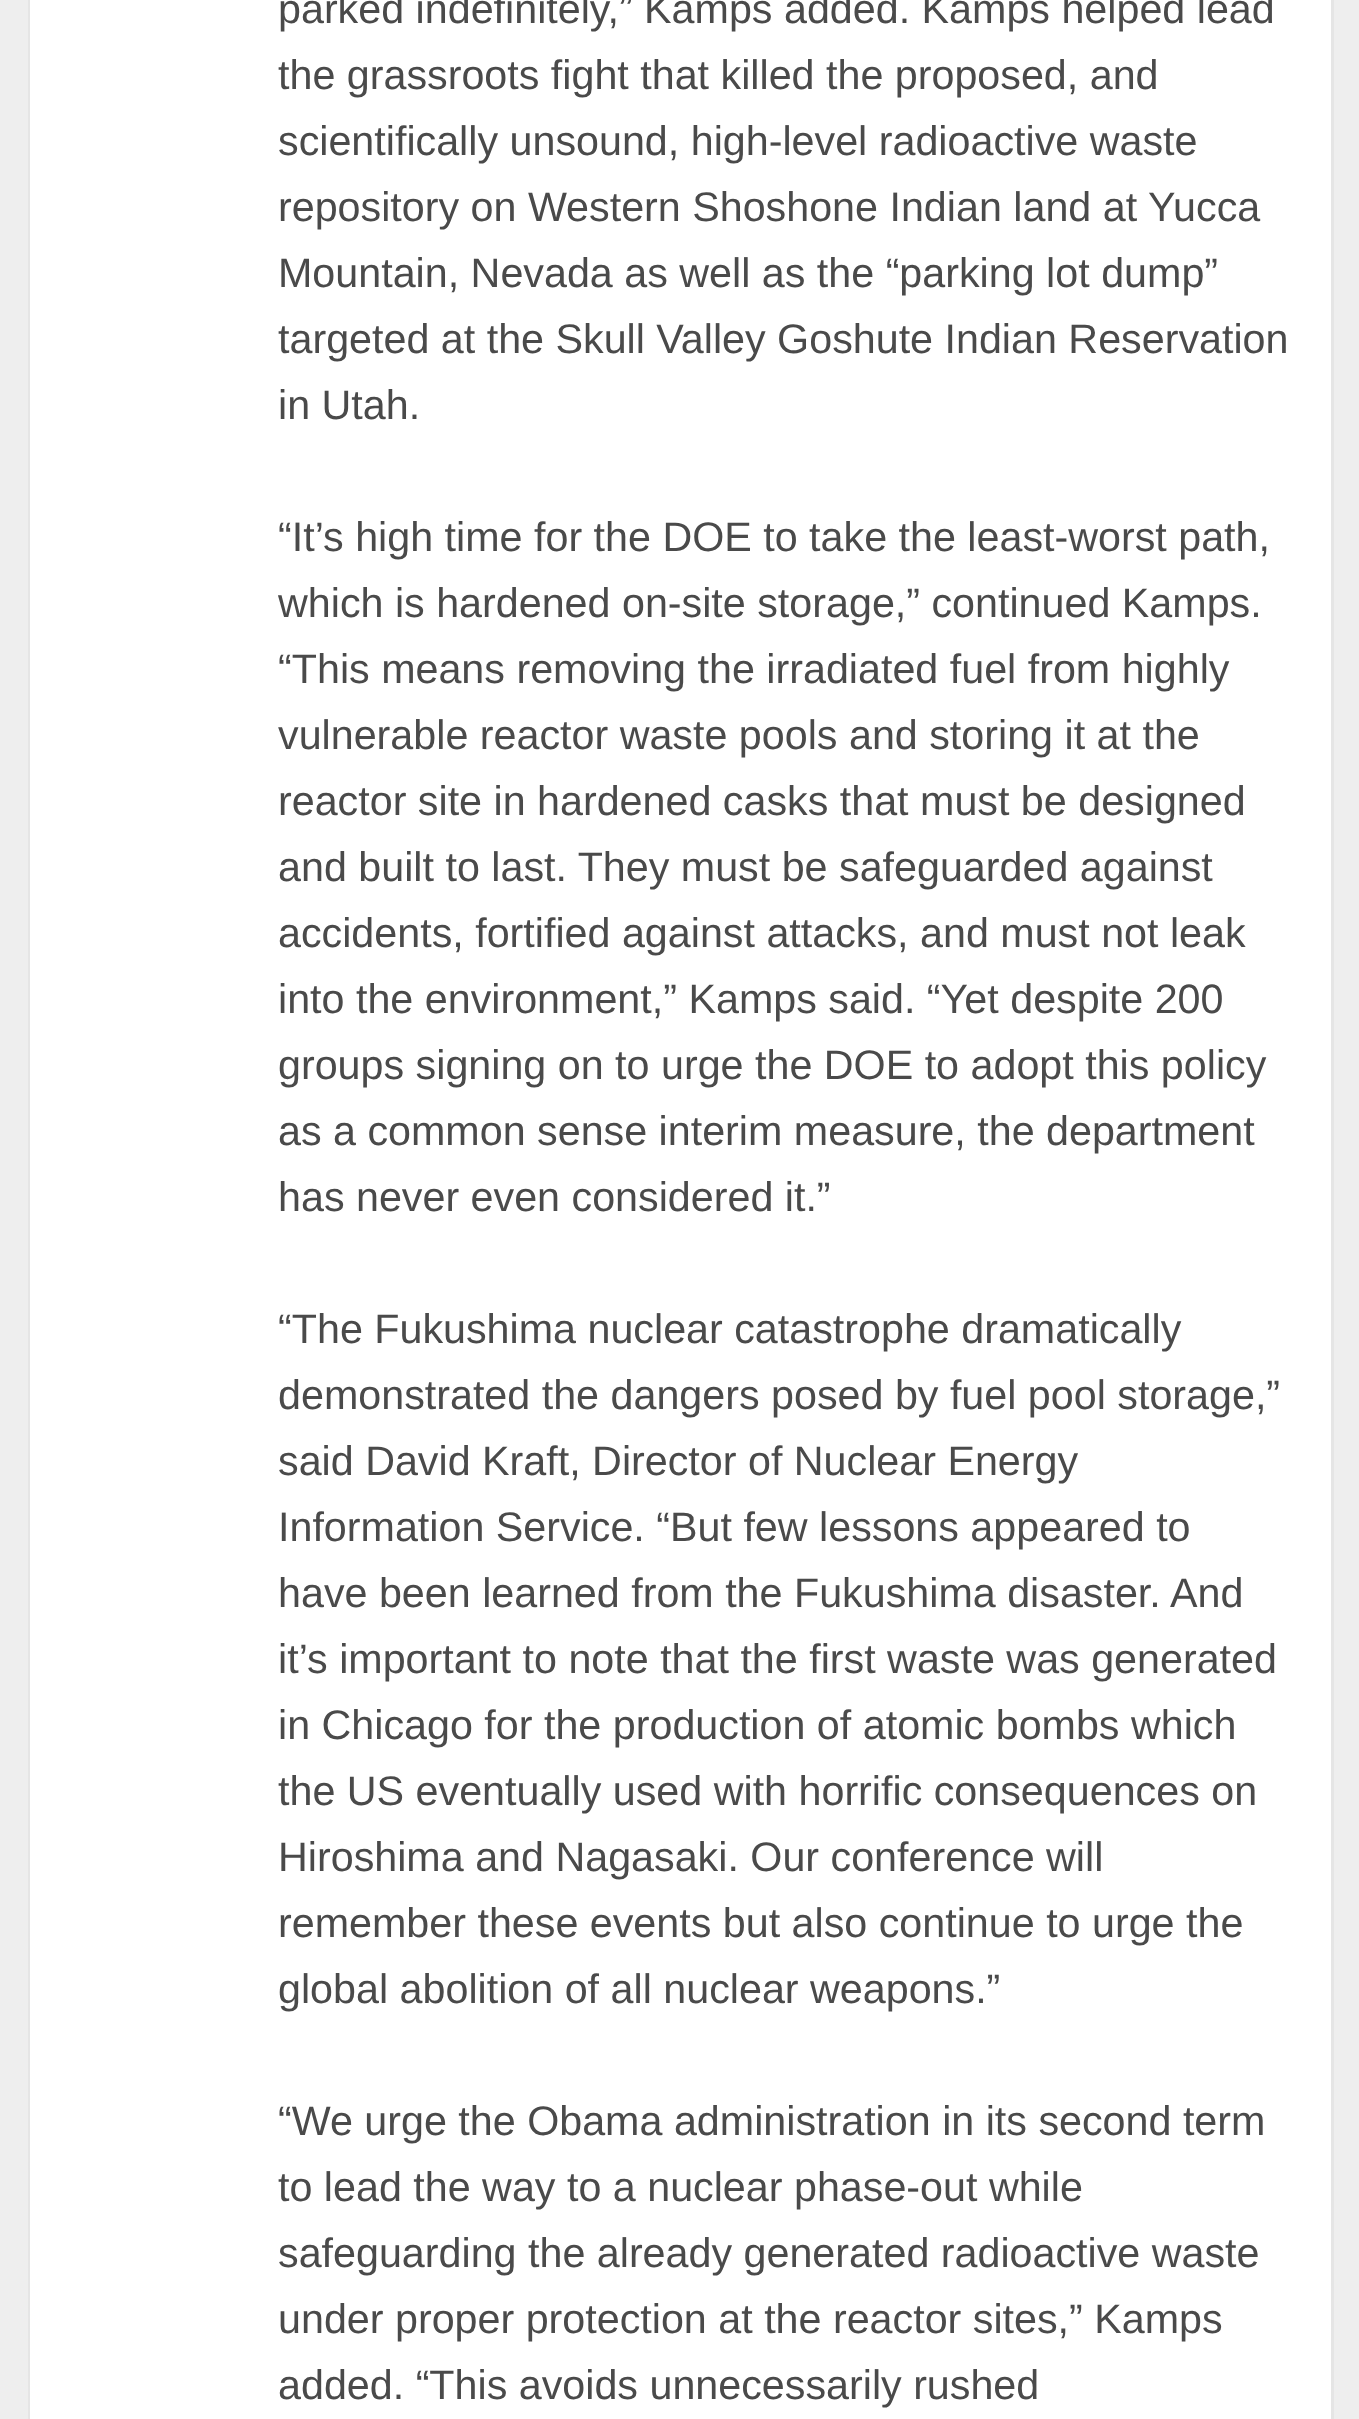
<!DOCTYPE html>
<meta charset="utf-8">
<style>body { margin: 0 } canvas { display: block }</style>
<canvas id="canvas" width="1359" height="2419"></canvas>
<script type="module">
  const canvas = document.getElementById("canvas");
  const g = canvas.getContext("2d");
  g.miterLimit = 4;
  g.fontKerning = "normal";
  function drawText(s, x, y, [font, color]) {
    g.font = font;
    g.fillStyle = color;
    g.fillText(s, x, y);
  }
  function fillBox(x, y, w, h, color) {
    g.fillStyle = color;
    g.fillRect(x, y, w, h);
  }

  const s1 = ["41.25px Liberation Sans", "#4A4A4A"];

  fillBox(0, 0, 1359, 2419, "#EEEEEE");
  g.strokeStyle = "#E5E5E5";
  g.lineWidth = 3;
  g.strokeRect(29.5, -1.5, 1303, 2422);
  fillBox(30, 0, 1301, 2419, "#FFFFFF");
  drawText("parked indefinitely,” Kamps added. Kamps helped lead", 278, 23, s1);
  drawText("the grassroots fight that killed the proposed, and", 278, 89, s1);
  drawText("scientifically unsound, high-level radioactive waste", 278, 155, s1);
  drawText("repository on Western Shoshone Indian land at Yucca", 278, 221, s1);
  drawText("Mountain, Nevada as well as the “parking lot dump”", 278, 287, s1);
  drawText("targeted at the Skull Valley Goshute Indian Reservation", 278, 353, s1);
  drawText("in Utah.", 278, 419, s1);
  drawText("“It’s high time for the DOE to take the least-worst path,", 278, 551, s1);
  drawText("which is hardened on-site storage,” continued Kamps.", 278, 617, s1);
  drawText("“This means removing the irradiated fuel from highly", 278, 683, s1);
  drawText("vulnerable reactor waste pools and storing it at the", 278, 749, s1);
  drawText("reactor site in hardened casks that must be designed", 278, 815, s1);
  drawText("and built to last. They must be safeguarded against", 278, 881, s1);
  drawText("accidents, fortified against attacks, and must not leak", 278, 947, s1);
  drawText("into the environment,” Kamps said. “Yet despite 200", 278, 1013, s1);
  drawText("groups signing on to urge the DOE to adopt this policy", 278, 1079, s1);
  drawText("as a common sense interim measure, the department", 278, 1145, s1);
  drawText("has never even considered it.”", 278, 1211, s1);
  drawText("“The Fukushima nuclear catastrophe dramatically", 278, 1343, s1);
  drawText("demonstrated the dangers posed by fuel pool storage,”", 278, 1409, s1);
  drawText("said David Kraft, Director of Nuclear Energy", 278, 1475, s1);
  drawText("Information Service. “But few lessons appeared to", 278, 1541, s1);
  drawText("have been learned from the Fukushima disaster. And", 278, 1607, s1);
  drawText("it’s important to note that the first waste was generated", 278, 1673, s1);
  drawText("in Chicago for the production of atomic bombs which", 278, 1739, s1);
  drawText("the US eventually used with horrific consequences on", 278, 1805, s1);
  drawText("Hiroshima and Nagasaki. Our conference will", 278, 1871, s1);
  drawText("remember these events but also continue to urge the", 278, 1937, s1);
  drawText("global abolition of all nuclear weapons.”", 278, 2003, s1);
  drawText("“We urge the Obama administration in its second term", 278, 2135, s1);
  drawText("to lead the way to a nuclear phase-out while", 278, 2201, s1);
  drawText("safeguarding the already generated radioactive waste", 278, 2267, s1);
  drawText("under proper protection at the reactor sites,” Kamps", 278, 2333, s1);
  drawText("added. “This avoids unnecessarily rushed", 278, 2399, s1);
</script>
